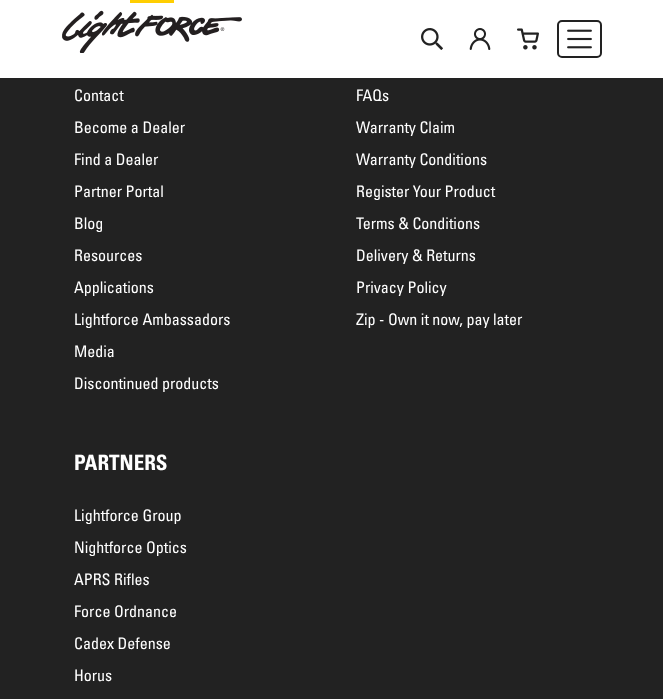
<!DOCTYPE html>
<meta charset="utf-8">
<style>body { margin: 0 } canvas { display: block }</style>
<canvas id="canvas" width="663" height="699"></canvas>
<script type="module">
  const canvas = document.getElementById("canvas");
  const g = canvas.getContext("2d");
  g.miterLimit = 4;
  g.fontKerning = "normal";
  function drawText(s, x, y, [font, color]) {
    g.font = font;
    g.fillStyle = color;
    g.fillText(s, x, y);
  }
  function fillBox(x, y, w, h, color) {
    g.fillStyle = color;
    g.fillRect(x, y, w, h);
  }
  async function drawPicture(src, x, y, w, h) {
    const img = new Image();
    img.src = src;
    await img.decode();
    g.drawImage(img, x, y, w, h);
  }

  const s1 = ["16px Univers", "#FFFFFF"];
  const s2 = ["bold 21px Univers", "#FFFFFF"];

  fillBox(0, 0, 663, 699, "#222222");
  fillBox(0, 0, 663, 78, "#FFFFFF");
  await drawPicture("pic1.png", 62, 0, 180, 53);
  await drawPicture("pic2.png", 421, 28, 22, 22);
  await drawPicture("pic3.png", 469, 28, 22, 22);
  await drawPicture("pic4.png", 517, 28, 22, 22);
  g.beginPath();
  g.roundRect(558, 21, 43, 36, 4);
  g.strokeStyle = "#222222";
  g.lineWidth = 2;
  g.stroke();
  await drawPicture("pic5.png", 567, 29, 25, 20);
  drawText("Contact", 74, 101, s1);
  drawText("Become a Dealer", 74, 133, s1);
  drawText("Find a Dealer", 74, 165, s1);
  drawText("Partner Portal", 74, 197, s1);
  drawText("Blog", 74, 229, s1);
  drawText("Resources", 74, 261, s1);
  drawText("Applications", 74, 293, s1);
  drawText("Lightforce Ambassadors", 74, 325, s1);
  drawText("Media", 74, 357, s1);
  drawText("Discontinued products", 74, 389, s1);
  drawText("FAQs", 356, 101, s1);
  drawText("Warranty Claim", 356, 133, s1);
  drawText("Warranty Conditions", 356, 165, s1);
  drawText("Register Your Product", 356, 197, s1);
  drawText("Terms & Conditions", 356, 229, s1);
  drawText("Delivery & Returns", 356, 261, s1);
  drawText("Privacy Policy", 356, 293, s1);
  drawText("Zip - Own it now, pay later", 356, 325, s1);
  drawText("PARTNERS", 74, 470, s2);
  drawText("Lightforce Group", 74, 521, s1);
  drawText("Nightforce Optics", 74, 553, s1);
  drawText("APRS Rifles", 74, 585, s1);
  drawText("Force Ordnance", 74, 617, s1);
  drawText("Cadex Defense", 74, 649, s1);
  drawText("Horus", 74, 681, s1);
</script>
